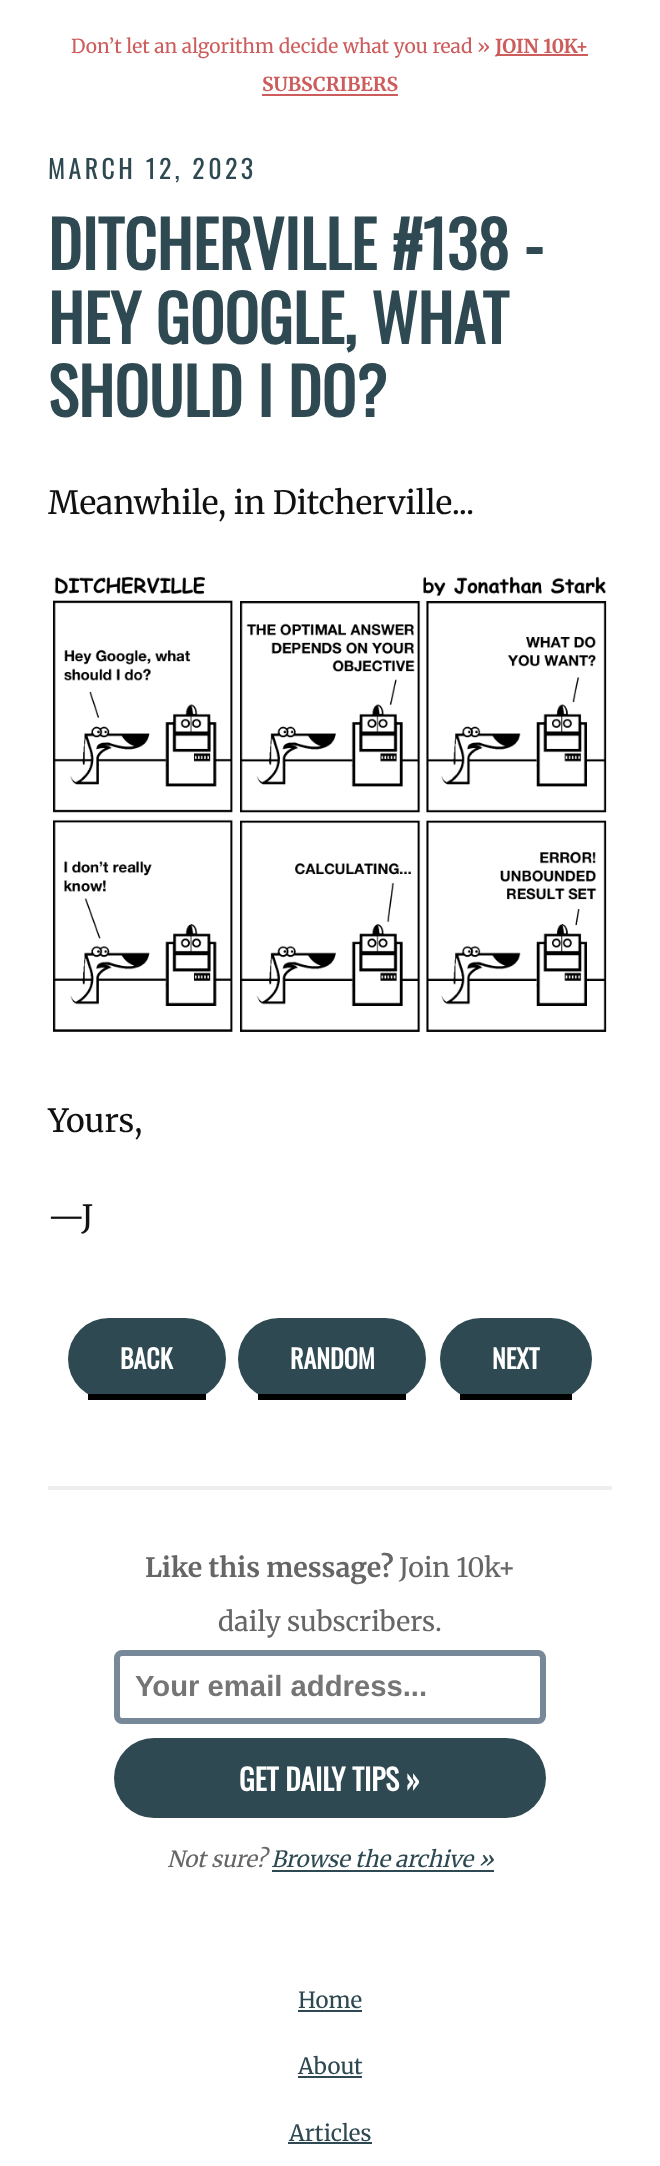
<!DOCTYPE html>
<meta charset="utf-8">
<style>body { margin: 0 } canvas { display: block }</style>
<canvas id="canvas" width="660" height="2166"></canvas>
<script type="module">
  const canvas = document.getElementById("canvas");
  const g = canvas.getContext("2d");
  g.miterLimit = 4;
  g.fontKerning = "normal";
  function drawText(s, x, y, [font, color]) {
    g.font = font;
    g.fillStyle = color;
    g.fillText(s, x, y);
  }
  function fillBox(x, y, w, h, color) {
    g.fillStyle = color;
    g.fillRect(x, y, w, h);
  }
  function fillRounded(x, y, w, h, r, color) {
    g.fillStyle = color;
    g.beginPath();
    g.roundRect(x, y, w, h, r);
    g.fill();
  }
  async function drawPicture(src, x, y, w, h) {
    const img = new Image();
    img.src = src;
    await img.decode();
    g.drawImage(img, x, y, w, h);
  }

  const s1 = ["19.2px Merriweather", "#CD5C5C"];
  const s2 = ["bold 19.2px Merriweather", "#CD5C5C"];
  const s3 = ["26px Oswald", "#2E4951"];
  const s4 = ["bold 64px Oswald", "#2E4951"];
  const s5 = ["32px Merriweather", "#111111"];
  const s6 = ["bold 26px Oswald", "#FFFFFF"];
  const s7 = ["bold 26.75px Merriweather", "#666666"];
  const s8 = ["26.75px Merriweather", "#666666"];
  const s9 = ["bold 29.25px Liberation Sans", "#757575"];
  const s10 = ["bold 29.25px Oswald", "#FFFFFF"];
  const s11 = ["italic 22.25px Merriweather", "#666666"];
  const s12 = ["italic 22.25px Merriweather", "#2E4951"];
  const s13 = ["22.25px Merriweather", "#2E4951"];

  fillBox(0, 0, 660, 2166, "#FFFFFF");
  drawText("Don’t let an algorithm decide what you read »", 71, 53, s1);
  fillBox(496, 54, 92, 2, "#CD5C5C");
  drawText("JOIN 10K+", 495, 53, s2);
  drawText("SUBSCRIBERS", 262, 91, s2);
  fillBox(262, 94, 136, 2, "#CD5C5C");
  g.letterSpacing = "3.4px";
  drawText("MARCH 12, 2023", 48, 179, s3);
  g.letterSpacing = "0px";
  drawText("DITCHERVILLE #138 -", 48, 270, s4);
  drawText("HEY GOOGLE, WHAT", 48, 344, s4);
  drawText("SHOULD I DO?", 48, 417, s4);
  drawText("Meanwhile, in Ditcherville...", 48, 514, s5);
  await drawPicture("pic1.png", 53, 576, 554, 456);
  drawText("Yours,", 48, 1132, s5);
  drawText("—J", 48, 1228, s5);
  fillRounded(68, 1318, 158, 82, 41, "#2E4951");
  fillBox(88, 1394, 118, 6, "#000000");
  drawText("BACK", 120, 1369, s6);
  fillRounded(238, 1318, 188, 82, 41, "#2E4951");
  fillBox(258, 1394, 148, 6, "#000000");
  drawText("RANDOM", 290, 1369, s6);
  fillRounded(440, 1318, 152, 82, 41, "#2E4951");
  fillBox(460, 1394, 112, 6, "#000000");
  drawText("NEXT", 492, 1369, s6);
  fillBox(48, 1486, 564, 4, "#EEEEEE");
  drawText("Like this message?", 145, 1577, s7);
  drawText("Join 10k+", 399, 1577, s8);
  drawText("daily subscribers.", 218, 1631, s8);
  g.beginPath();
  g.roundRect(117, 1653, 426, 68, 5);
  g.strokeStyle = "#778899";
  g.lineWidth = 6;
  g.stroke();
  drawText("Your email address...", 135, 1696, s9);
  fillRounded(114, 1738, 432, 80, 40, "#2E4951");
  drawText("GET DAILY TIPS »", 239, 1791, s10);
  drawText("Not sure?", 167, 1867, s11);
  drawText("Browse the archive »", 271, 1867, s12);
  fillBox(272, 1870, 222, 2, "#2E4951");
  drawText("Home", 298, 2008, s13);
  fillBox(298, 2010, 64, 2, "#2E4951");
  drawText("About", 298, 2074, s13);
  fillBox(298, 2076, 64, 2, "#2E4951");
  drawText("Articles", 289, 2141, s13);
  fillBox(288, 2142, 84, 2, "#2E4951");
</script>
